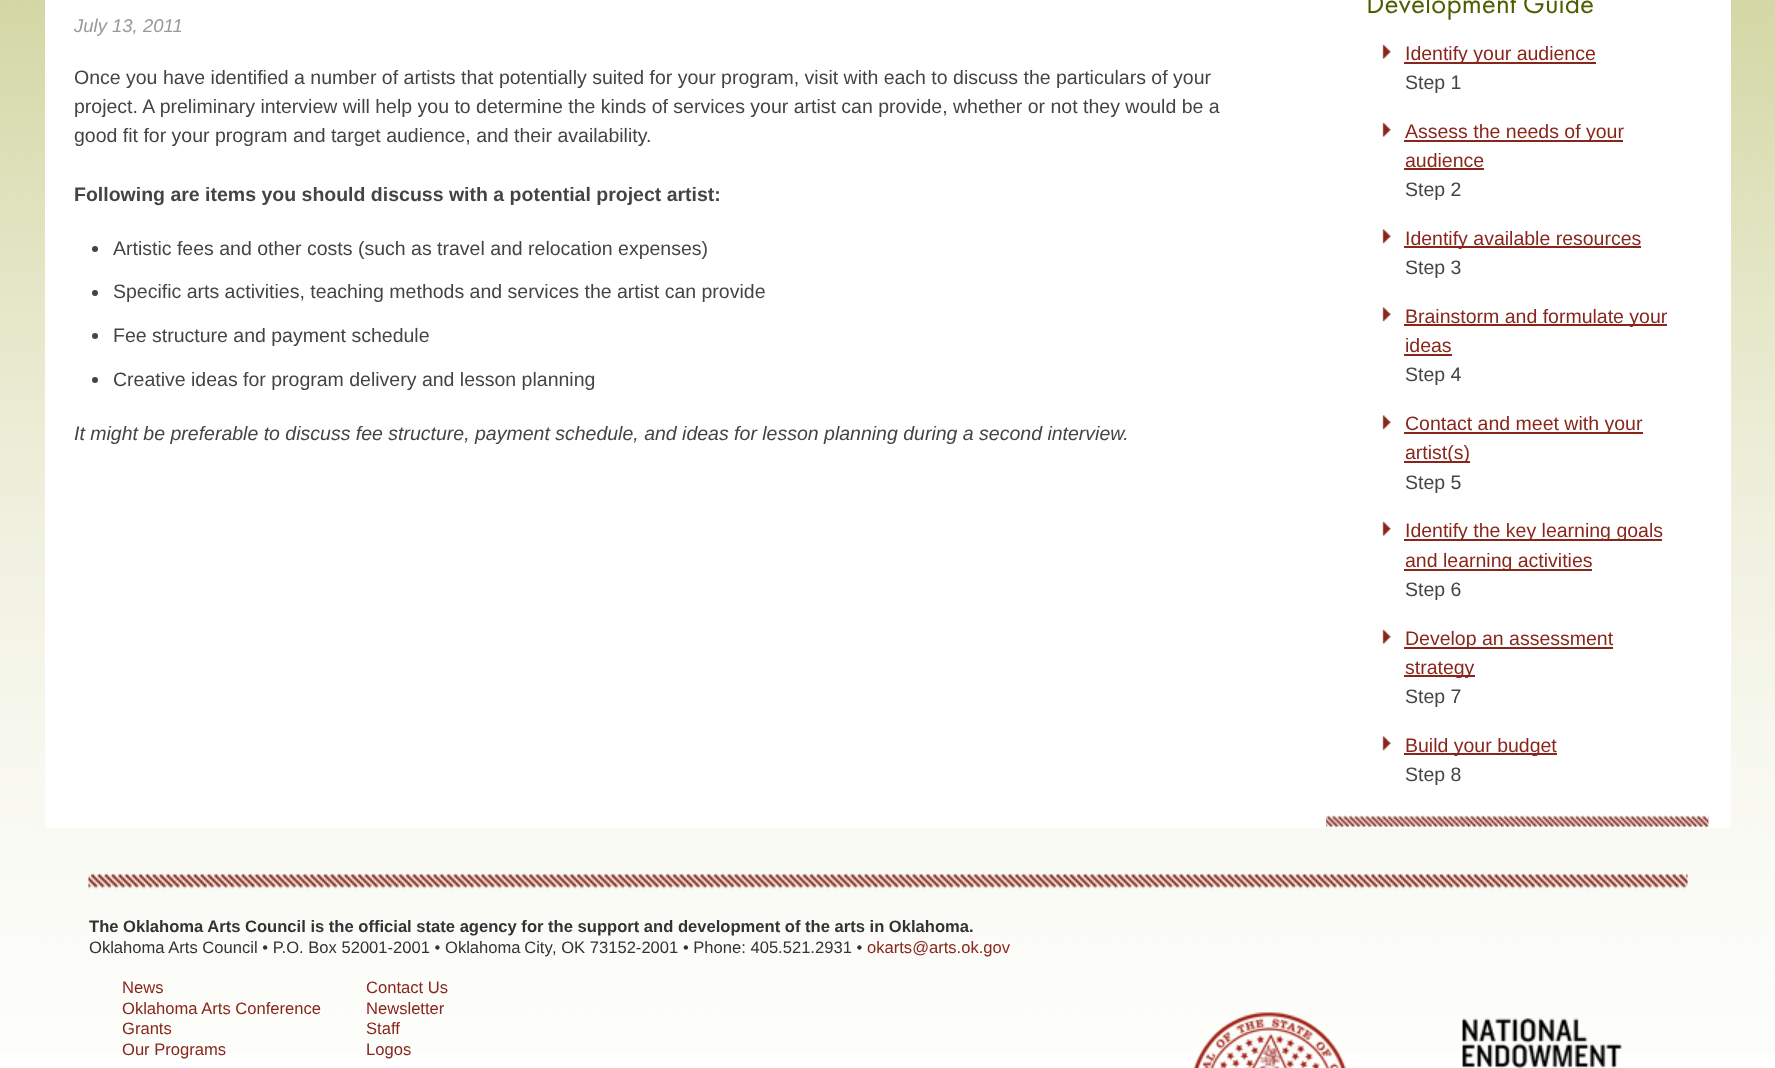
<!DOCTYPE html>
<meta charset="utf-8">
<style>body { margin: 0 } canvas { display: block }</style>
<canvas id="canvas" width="1775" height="1068"></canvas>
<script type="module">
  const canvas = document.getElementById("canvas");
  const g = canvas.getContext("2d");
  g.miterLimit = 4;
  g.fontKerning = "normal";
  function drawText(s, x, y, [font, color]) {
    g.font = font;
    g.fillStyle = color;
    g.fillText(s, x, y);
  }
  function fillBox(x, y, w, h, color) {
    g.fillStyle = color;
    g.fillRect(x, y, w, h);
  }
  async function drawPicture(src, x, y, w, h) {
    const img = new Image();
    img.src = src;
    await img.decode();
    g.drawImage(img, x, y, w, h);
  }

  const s1 = ["italic 18.5px Liberation Sans", "#999999"];
  const s2 = ["19.5px Liberation Sans", "#444444"];
  const s3 = ["bold 19.5px Liberation Sans", "#444444"];
  const s4 = ["italic 19.5px Liberation Sans", "#444444"];
  const s5 = ["29.25px Futura PT", "#4C5F00"];
  const s6 = ["19.5px Liberation Sans", "#89261B"];
  const s7 = ["bold 16.58px Liberation Sans", "#333333"];
  const s8 = ["16.58px Liberation Sans", "#333333"];
  const s9 = ["16.58px Liberation Sans", "#89261B"];

  fillBox(0, 0, 1775, 1068, "#FFFFFF");
  await drawPicture("pic1.png", 0, 0, 1775, 1054);
  fillBox(45, 0, 1686, 828, "#FFFFFF");
  drawText("July 13, 2011", 74, 32, s1);
  drawText("Once you have identified a number of artists that potentially suited for your program, visit with each to discuss the particulars of your", 74, 84, s2);
  drawText("project. A preliminary interview will help you to determine the kinds of services your artist can provide, whether or not they would be a", 74, 113, s2);
  drawText("good fit for your program and target audience, and their availability.", 74, 142, s2);
  drawText("Following are items you should discuss with a potential project artist:", 74, 201, s3);
  g.beginPath();
  g.arc(95, 249, 3, 0, Math.PI * 2);
  g.fill();
  drawText("Artistic fees and other costs (such as travel and relocation expenses)", 113, 255, s2);
  g.beginPath();
  g.arc(95, 293, 3, 0, Math.PI * 2);
  g.fill();
  drawText("Specific arts activities, teaching methods and services the artist can provide", 113, 298, s2);
  g.beginPath();
  g.arc(95, 336, 3, 0, Math.PI * 2);
  g.fill();
  drawText("Fee structure and payment schedule", 113, 342, s2);
  g.beginPath();
  g.arc(95, 380, 3, 0, Math.PI * 2);
  g.fill();
  drawText("Creative ideas for program delivery and lesson planning", 113, 386, s2);
  drawText("It might be preferable to discuss fee structure, payment schedule, and ideas for lesson planning during a second interview.", 74, 440, s4);
  await drawPicture("pic2.png", 1326, 815, 383, 13);
  drawText("Development Guide", 1366, 13, s5);
  await drawPicture("pic3.png", 1382, 44, 9, 15);
  fillBox(1404, 62, 192, 2, "#89261B");
  drawText("Identify your audience", 1405, 60, s6);
  drawText("Step 1", 1405, 89, s2);
  await drawPicture("pic3.png", 1382, 122, 9, 15);
  fillBox(1404, 140, 219, 2, "#89261B");
  drawText("Assess the needs of your", 1405, 138, s6);
  drawText("audience", 1405, 167, s6);
  fillBox(1404, 168, 80, 2, "#89261B");
  drawText("Step 2", 1405, 196, s2);
  await drawPicture("pic4.png", 1382, 229, 9, 15);
  fillBox(1404, 246, 237, 2, "#89261B");
  drawText("Identify available resources", 1405, 245, s6);
  drawText("Step 3", 1405, 274, s2);
  await drawPicture("pic4.png", 1382, 307, 9, 15);
  fillBox(1404, 324, 263, 2, "#89261B");
  drawText("Brainstorm and formulate your", 1405, 323, s6);
  drawText("ideas", 1405, 352, s6);
  fillBox(1404, 354, 48, 2, "#89261B");
  drawText("Step 4", 1405, 381, s2);
  await drawPicture("pic4.png", 1382, 415, 9, 15);
  fillBox(1404, 432, 239, 2, "#89261B");
  drawText("Contact and meet with your", 1405, 430, s6);
  fillBox(1404, 461, 66, 2, "#89261B");
  drawText("artist(s)", 1405, 459, s6);
  drawText("Step 5", 1405, 489, s2);
  await drawPicture("pic3.png", 1382, 521, 9, 15);
  fillBox(1404, 539, 258, 2, "#89261B");
  drawText("Identify the key learning goals", 1405, 537, s6);
  fillBox(1404, 569, 188, 2, "#89261B");
  drawText("and learning activities", 1405, 567, s6);
  drawText("Step 6", 1405, 596, s2);
  await drawPicture("pic3.png", 1382, 629, 9, 15);
  fillBox(1404, 647, 209, 2, "#89261B");
  drawText("Develop an assessment", 1405, 645, s6);
  fillBox(1404, 675, 71, 2, "#89261B");
  drawText("strategy", 1405, 674, s6);
  drawText("Step 7", 1405, 703, s2);
  await drawPicture("pic4.png", 1382, 736, 9, 15);
  fillBox(1404, 753, 153, 2, "#89261B");
  drawText("Build your budget", 1405, 752, s6);
  drawText("Step 8", 1405, 781, s2);
  await drawPicture("pic5.png", 88, 873, 1600, 16);
  drawText("The Oklahoma Arts Council is the official state agency for the support and development of the arts in Oklahoma.", 89, 932, s7);
  drawText("Oklahoma Arts Council • P.O. Box 52001-2001 •", 89, 953, s8);
  g.wordSpacing = "-1px";
  drawText("Oklahoma City", 445, 953, s8);
  g.wordSpacing = "0px";
  drawText(", OK 73152-2001 • Phone: 405.521.2931 •", 552, 953, s8);
  drawText("okarts@arts.ok.gov", 867, 953, s9);
  drawText("News", 122, 993, s9);
  drawText("Oklahoma Arts Conference", 122, 1014, s9);
  drawText("Grants", 122, 1034, s9);
  drawText("Our Programs", 122, 1055, s9);
  drawText("Contact Us", 366, 993, s9);
  drawText("Newsletter", 366, 1014, s9);
  drawText("Staff", 366, 1034, s9);
  drawText("Logos", 366, 1055, s9);
  await drawPicture("pic6.png", 1193, 1012, 153, 56);
  await drawPicture("pic7.png", 1462, 1018, 160, 50);
</script>
